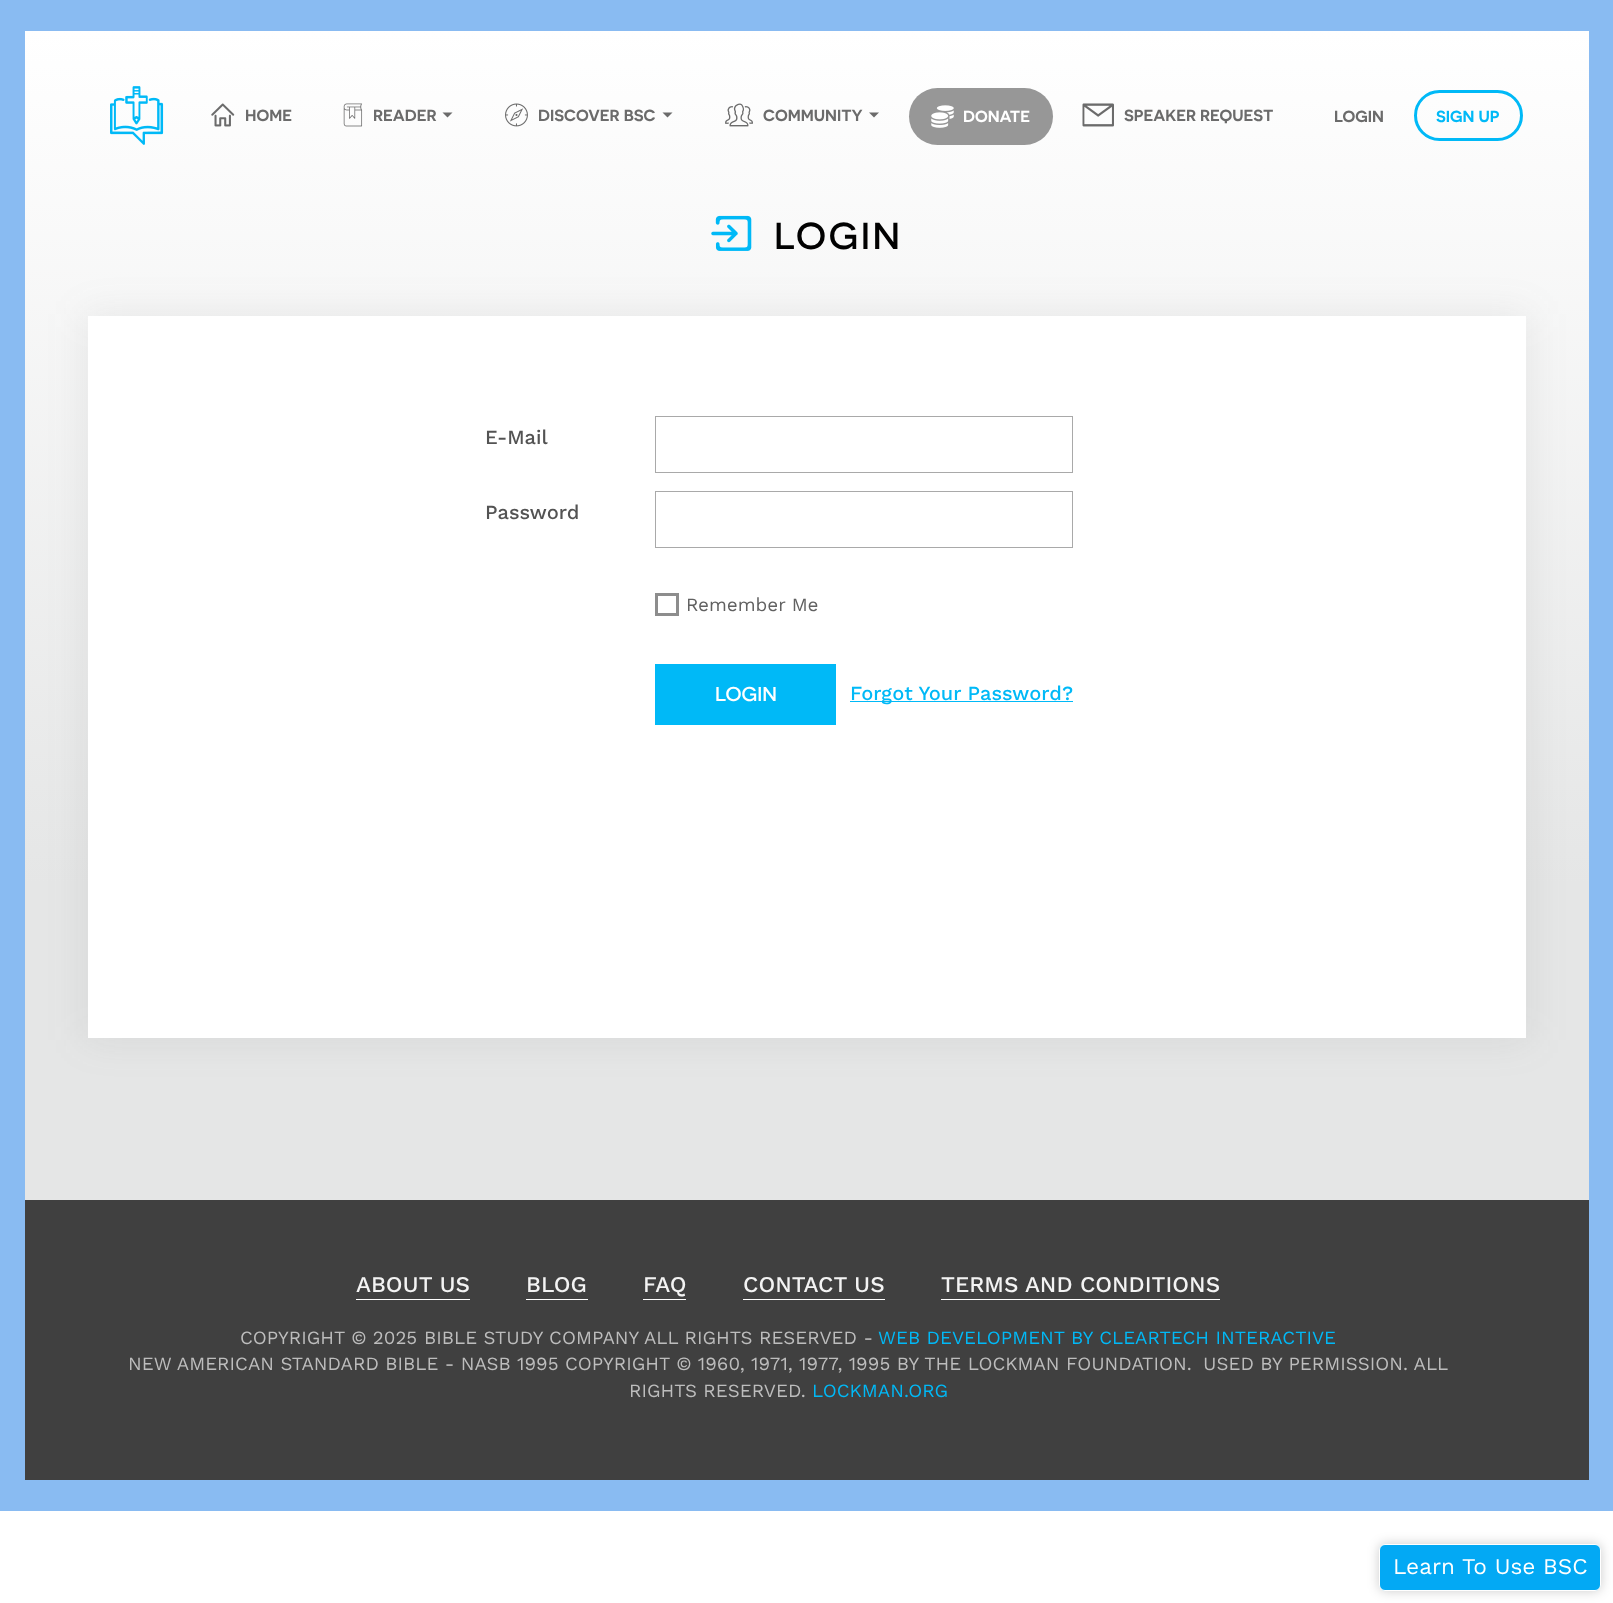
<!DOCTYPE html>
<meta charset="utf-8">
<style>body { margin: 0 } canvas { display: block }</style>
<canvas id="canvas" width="1613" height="1603"></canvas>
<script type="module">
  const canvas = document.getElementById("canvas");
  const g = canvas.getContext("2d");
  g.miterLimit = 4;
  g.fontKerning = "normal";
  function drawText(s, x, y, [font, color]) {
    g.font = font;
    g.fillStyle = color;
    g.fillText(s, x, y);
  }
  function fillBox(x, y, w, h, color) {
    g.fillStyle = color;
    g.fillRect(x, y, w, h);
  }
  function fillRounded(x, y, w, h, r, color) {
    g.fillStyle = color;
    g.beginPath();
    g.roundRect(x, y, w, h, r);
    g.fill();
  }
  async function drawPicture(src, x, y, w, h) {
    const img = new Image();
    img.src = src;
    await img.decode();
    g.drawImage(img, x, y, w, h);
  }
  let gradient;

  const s1 = ["600 16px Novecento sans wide", "#6B6B6B"];
  const s2 = ["600 16px Novecento sans wide", "#FFFFFF"];
  const s3 = ["600 16px Novecento sans wide", "#00B9F7"];
  const s4 = ["600 37.5px 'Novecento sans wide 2'", "#010101"];
  const s5 = ["500 20px Work Sans", "#535353"];
  const s6 = ["18.73px Work Sans", "#616161"];
  const s7 = ["600 20px 'Novecento sans wide 2'", "#FFFFFF"];
  const s8 = ["500 20px Work Sans", "#00B9F7"];
  const s9 = ["500 22.5px Work Sans", "#F3F3F3"];
  const s10 = ["18.73px Work Sans", "#BDBDBD"];
  const s11 = ["18.73px Work Sans", "#00B9F7"];
  const s12 = ["22.5px Work Sans", "#FFFFFF"];

  fillBox(0, 0, 1613, 1603, "#FFFFFF");
  fillBox(0, 0, 1613, 1511, "#89BBF2");
  gradient = g.createLinearGradient(807, 31, 807, 1200);
  gradient.addColorStop(0, "#FFFFFF");
  gradient.addColorStop(0.73, "#E5E6E6");
  gradient.addColorStop(1, "#E5E6E6");
  g.fillStyle = gradient;
  g.fillRect(25, 31, 1564, 1169);
  await drawPicture("pic1.png", 110, 86, 54, 59);
  await drawPicture("pic2.png", 211, 103, 24, 24);
  drawText("HOME", 245, 121, s1);
  await drawPicture("pic3.png", 343, 103, 20, 24);
  drawText("READER", 373, 121, s1);
  g.beginPath();
  g.moveTo(442.5, 112.5);
  g.lineTo(452.5, 112.5);
  g.lineTo(447.5, 117.5);
  g.closePath();
  g.fill();
  await drawPicture("pic4.png", 505, 103, 23, 24);
  drawText("DISCOVER BSC", 538, 121, s1);
  g.beginPath();
  g.moveTo(662.5, 112.5);
  g.lineTo(672.5, 112.5);
  g.lineTo(667.5, 117.5);
  g.closePath();
  g.fill();
  await drawPicture("pic5.png", 725, 103, 28, 24);
  drawText("COMMUNITY", 763, 121, s1);
  g.beginPath();
  g.moveTo(869, 112.5);
  g.lineTo(879, 112.5);
  g.lineTo(874, 117.5);
  g.closePath();
  g.fill();
  fillRounded(909, 88, 144, 57, 28.5, "#979797");
  await drawPicture("pic6.png", 931, 105, 23, 23);
  drawText("DONATE", 963, 122, s2);
  await drawPicture("pic7.png", 1082, 103, 32, 24);
  drawText("SPEAKER REQUEST", 1124, 121, s1);
  drawText("LOGIN", 1334, 122, s1);
  g.beginPath();
  g.roundRect(1415.5, 91.5, 106, 48, 24);
  g.strokeStyle = "#00B9F7";
  g.lineWidth = 3;
  g.stroke();
  drawText("SIGN UP", 1436, 122, s3);
  await drawPicture("pic8.png", 711, 215, 41, 36);
  g.letterSpacing = "2.5px";
  drawText("LOGIN", 774, 249, s4);
  g.fillStyle = "rgba(100, 100, 100, 0.1)";
  g.filter = "blur(19px)";
  g.beginPath();
  g.rect(85, 314, 1444, 726);
  g.fill();
  g.filter = "none";
  fillBox(88, 316, 1438, 722, "#FFFFFF");
  g.letterSpacing = "0px";
  drawText("E-Mail", 485, 444, s5);
  g.strokeStyle = "#A9A9A9";
  g.lineWidth = 1;
  g.strokeRect(655.5, 416.5, 417, 56);
  drawText("Password", 485, 519, s5);
  g.strokeRect(655.5, 491.5, 417, 56);
  g.strokeStyle = "#8D8D8D";
  g.lineWidth = 3;
  g.strokeRect(656.5, 594.5, 21, 20);
  drawText("Remember Me", 686, 611, s6);
  fillBox(655, 664, 181, 61, "#00B9F7");
  drawText("LOGIN", 715, 701, s7);
  fillBox(850, 701, 223, 1, "#00B9F7");
  drawText("Forgot Your Password?", 850, 700, s8);
  fillBox(25, 1200, 1564, 280, "#404040");
  fillBox(356, 1299, 114, 1, "#FFFFFF");
  drawText("ABOUT US", 356, 1292, s9);
  fillBox(526, 1299, 62, 1, "#FFFFFF");
  drawText("BLOG", 526, 1292, s9);
  fillBox(643, 1299, 43, 1, "#FFFFFF");
  drawText("FAQ", 643, 1292, s9);
  fillBox(743, 1299, 142, 1, "#FFFFFF");
  drawText("CONTACT US", 743, 1292, s9);
  fillBox(941, 1299, 279, 1, "#FFFFFF");
  drawText("TERMS AND CONDITIONS", 941, 1292, s9);
  drawText("COPYRIGHT © 2025", 240, 1344, s10);
  drawText("BIBLE STUDY COMPANY", 424, 1344, s10);
  drawText("ALL RIGHTS RESERVED -", 644, 1344, s10);
  drawText("WEB DEVELOPMENT BY CLEARTECH INTERACTIVE", 878, 1344, s11);
  drawText("NEW AMERICAN STANDARD BIBLE - NASB 1995 COPYRIGHT © 1960, 1971, 1977, 1995 BY THE LOCKMAN FOUNDATION.", 128, 1370, s10);
  drawText("USED BY PERMISSION. ALL", 1203, 1370, s10);
  drawText("RIGHTS RESERVED.", 629, 1397, s10);
  drawText("LOCKMAN.ORG", 812, 1397, s11);
  g.fillStyle = "rgba(0, 0, 0, 0.2)";
  g.filter = "blur(6px)";
  g.beginPath();
  g.roundRect(1379, 1544, 222, 47, 6);
  g.fill();
  g.filter = "none";
  g.fillStyle = "#03A9F4";
  g.beginPath();
  g.roundRect(1379.5, 1544.5, 221, 46, 5.5);
  g.fill();
  g.strokeStyle = "#FFFFFF";
  g.lineWidth = 1;
  g.stroke();
  drawText("Learn To Use BSC", 1393, 1574, s12);
</script>
